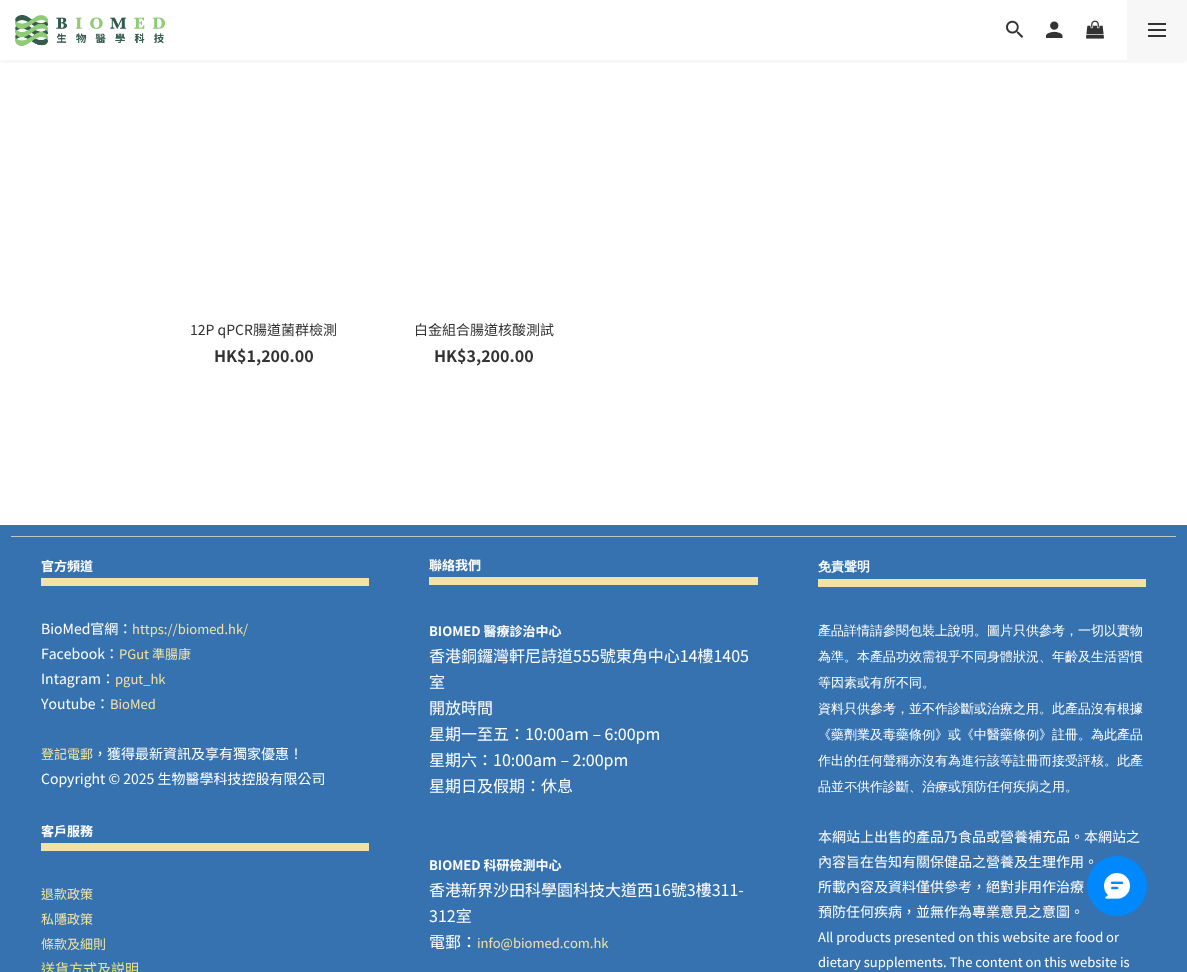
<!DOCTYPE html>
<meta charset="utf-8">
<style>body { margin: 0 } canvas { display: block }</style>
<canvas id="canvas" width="1187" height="972"></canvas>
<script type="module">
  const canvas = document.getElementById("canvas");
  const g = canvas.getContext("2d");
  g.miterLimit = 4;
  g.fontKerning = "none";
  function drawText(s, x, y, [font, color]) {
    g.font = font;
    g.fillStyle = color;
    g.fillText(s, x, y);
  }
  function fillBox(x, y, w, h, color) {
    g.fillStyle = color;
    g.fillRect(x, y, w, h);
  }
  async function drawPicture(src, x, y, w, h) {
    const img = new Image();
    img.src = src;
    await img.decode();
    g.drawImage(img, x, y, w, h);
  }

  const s1 = ["14px Noto Sans TC", "#333333"];
  const s2 = ["bold 16px Noto Sans TC", "#333333"];
  const s3 = ["bold 13px Noto Sans TC", "#FFFFFF"];
  const s4 = ["14px Noto Sans TC", "#FFFFFF"];
  const s5 = ["13px Noto Sans TC", "#F1E3A3"];
  const s6 = ["14px Noto Sans TC", "#EEE571"];
  const s7 = ["16px Noto Sans TC", "#FFFFFF"];
  const s8 = ["bold 13px WenQuanYi Zen Hei", "#FFFFFF"];
  const s9 = ["500 13px WenQuanYi Zen Hei", "#FFFFFF"];
  const s10 = ["13px Noto Sans TC", "#FFFFFF"];

  fillBox(0, 0, 1187, 972, "#FFFFFF");
  g.save();
  g.beginPath();
  g.rect(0, 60, 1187, 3);
  g.clip();
  g.fillStyle = "rgba(0, 0, 0, 0.06)";
  g.filter = "blur(3px)";
  g.beginPath();
  g.rect(0, 2, 1187, 60);
  g.fill();
  g.filter = "none";
  g.restore();
  await drawPicture("pic1.png", 15, 14, 150, 32);
  await drawPicture("pic2.png", 1006, 20, 18, 18);
  await drawPicture("pic3.png", 1046, 21, 17, 17);
  await drawPicture("pic4.png", 1086, 20, 18, 19);
  fillBox(1127, 0, 60, 60, "#F7F7F7");
  fillBox(1148, 29, 18, 2, "#333333");
  fillBox(1148, 23, 18, 2, "#333333");
  fillBox(1148, 35, 18, 2, "#333333");
  drawText("12P qPCR腸道菌群檢測", 190, 335, s1);
  drawText("HK$1,200.00", 214, 362, s2);
  drawText("白金組合腸道核酸測試", 414, 335, s1);
  drawText("HK$3,200.00", 434, 362, s2);
  fillBox(0, 525, 1187, 447, "#3672AF");
  fillBox(11, 536, 1165, 1, "#C5C5C5");
  drawText("官方頻道", 41, 571, s3);
  fillBox(41, 578, 328, 8, "#F1E3A3");
  drawText("BioMed官網：", 41, 634, s4);
  drawText("https://biomed.hk/", 132, 634, s5);
  drawText("Facebook：", 41, 659, s4);
  drawText("PGut 準腸康", 119, 659, s5);
  drawText("Intagram：", 41, 684, s4);
  drawText("pgut_hk", 115, 684, s5);
  drawText("Youtube：", 41, 709, s4);
  drawText("BioMed", 110, 709, s5);
  drawText("登記電郵", 41, 759, s5);
  drawText("，獲得最新資訊及享有獨家優惠！", 93, 759, s4);
  drawText("Copyright © 2025 生物醫學科技控股有限公司", 41, 784, s4);
  drawText("客戶服務", 41, 836, s3);
  fillBox(41, 843, 328, 8, "#F1E3A3");
  drawText("退款政策", 41, 899, s5);
  drawText("私隱政策", 41, 924, s5);
  drawText("條款及細則", 41, 949, s5);
  drawText("送貨方式及説明", 41, 974, s6);
  drawText("聯絡我們", 429, 570, s3);
  fillBox(429, 577, 329, 8, "#F1E3A3");
  drawText("BIOMED 醫療診治中心", 429, 636, s3);
  drawText("香港銅鑼灣軒尼詩道555號東角中心14樓1405", 429, 662, s7);
  drawText("室", 429, 688, s7);
  drawText("開放時間", 429, 714, s7);
  drawText("星期一至五：10:00am – 6:00pm", 429, 740, s7);
  drawText("星期六：10:00am – 2:00pm", 429, 766, s7);
  drawText("星期日及假期：休息", 429, 792, s7);
  drawText("BIOMED 科研檢測中心", 429, 870, s3);
  drawText("香港新界沙田科學園科技大道西16號3樓311-", 429, 896, s7);
  drawText("312室", 429, 922, s7);
  drawText("電郵：", 429, 948, s7);
  drawText("info@biomed.com.hk", 477, 948, s5);
  drawText("免責聲明", 818, 571, s8);
  fillBox(818, 579, 328, 8, "#F1E3A3");
  drawText("產品詳情請參閱包裝上說明。圖片只供參考，一切以實物", 818, 635, s9);
  drawText("為準。本產品功效需視乎不同身體狀況、年齡及生活習慣", 818, 661, s9);
  drawText("等因素或有所不同。", 818, 687, s9);
  drawText("資料只供參考，並不作診斷或治療之用。此產品沒有根據", 818, 713, s9);
  drawText("《藥劑業及毒藥條例》或《中醫藥條例》註冊。為此產品", 818, 739, s9);
  drawText("作出的任何聲稱亦沒有為進行該等註冊而接受評核。此產", 818, 765, s9);
  drawText("品並不供作診斷、治療或預防任何疾病之用。", 818, 791, s9);
  drawText("本網站上出售的產品乃食品或營養補充品。本網站之", 818, 842, s4);
  drawText("內容旨在告知有關保健品之營養及生理作用。", 818, 867, s4);
  drawText("所載內容及資料僅供參考，絕對非用作治療", 818, 892, s4);
  drawText("預防任何疾病，並無作為專業意見之意圖。", 818, 917, s4);
  drawText("All products presented on this website are food or", 818, 942, s10);
  drawText("dietary supplements. The content on this website is", 818, 967, s10);
  g.fillStyle = "#0088FE";
  g.beginPath();
  g.arc(1117, 886, 30, 0, Math.PI * 2);
  g.fill();
  await drawPicture("pic5.png", 1104, 873, 26, 26);
</script>
